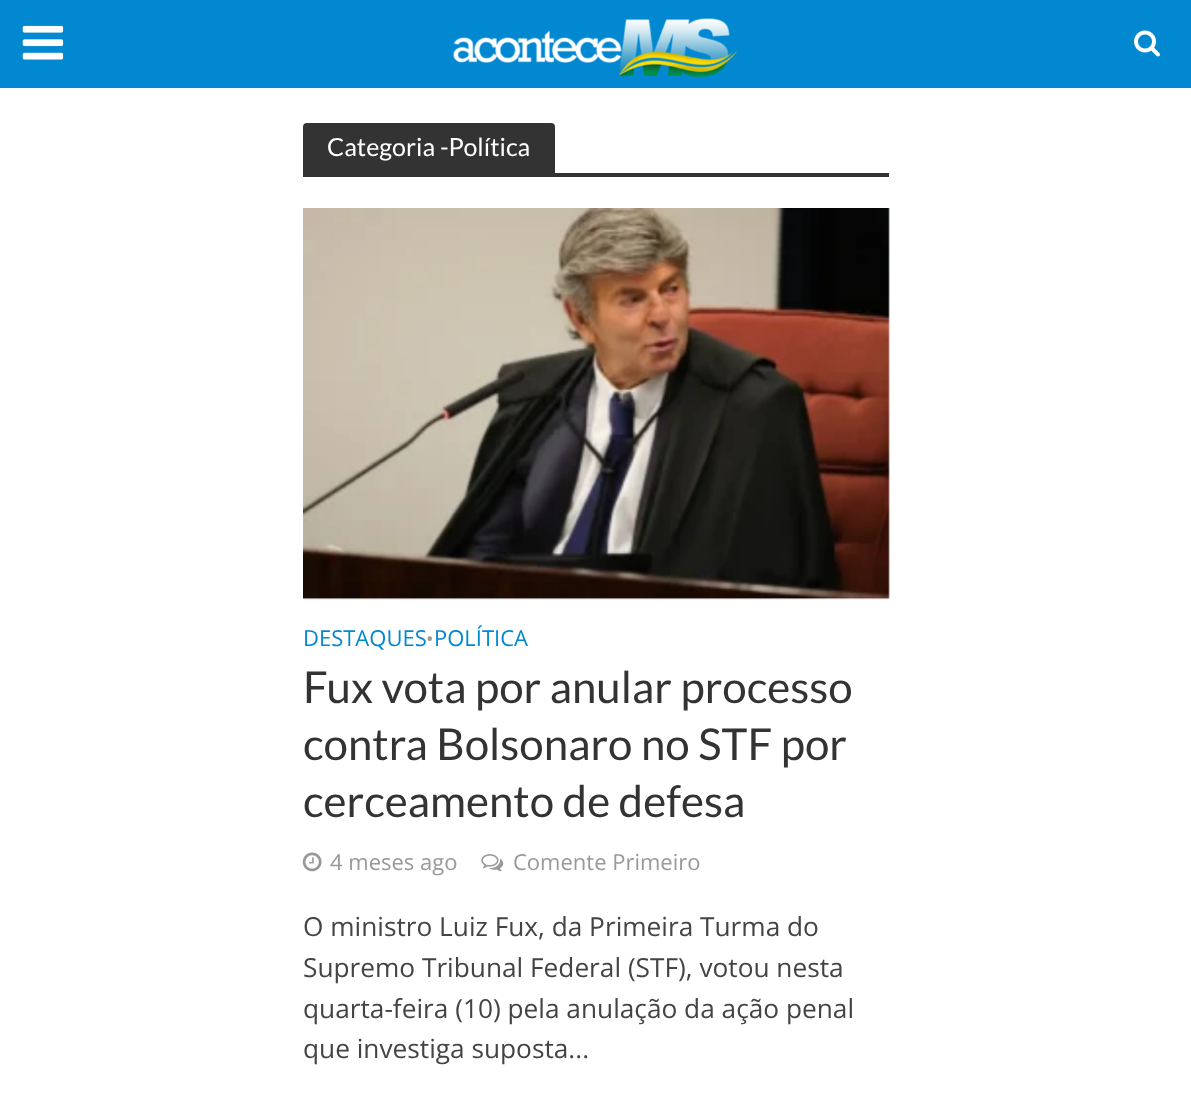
<!DOCTYPE html>
<meta charset="utf-8">
<style>body { margin: 0 } canvas { display: block }</style>
<canvas id="canvas" width="1191" height="1098"></canvas>
<script type="module">
  const canvas = document.getElementById("canvas");
  const g = canvas.getContext("2d");
  g.miterLimit = 4;
  g.fontKerning = "normal";
  function drawText(s, x, y, [font, color]) {
    g.font = font;
    g.fillStyle = color;
    g.fillText(s, x, y);
  }
  function fillBox(x, y, w, h, color) {
    g.fillStyle = color;
    g.fillRect(x, y, w, h);
  }
  async function drawPicture(src, x, y, w, h) {
    const img = new Image();
    img.src = src;
    await img.decode();
    g.drawImage(img, x, y, w, h);
  }

  const s1 = ["25px Lato", "#FFFFFF"];
  const s2 = ["22px Open Sans", "#0288D1"];
  const s3 = ["20px Open Sans", "#999999"];
  const s4 = ["43.9px Lato", "#333333"];
  const s5 = ["22px Open Sans", "#999999"];
  const s6 = ["26.25px Open Sans", "#444444"];

  fillBox(0, 0, 1191, 1098, "#FFFFFF");
  fillBox(0, 0, 1191, 88, "#0288D1");
  await drawPicture("pic1.png", 22, 25, 42, 35);
  await drawPicture("pic2.png", 453, 18, 285, 59);
  await drawPicture("pic3.png", 1134, 30, 26, 27);
  g.fillStyle = "#333333";
  g.beginPath();
  g.roundRect(303, 123, 252, 50, [4, 4, 0, 0]);
  g.fill();
  drawText("Categoria -Política", 327, 156, s1);
  fillBox(303, 173, 586, 4, "#333333");
  fillBox(303, 208, 586, 391, "#F3F3F3");
  await drawPicture("pic4.png", 303, 208, 587, 392);
  drawText("DESTAQUES", 303, 646, s2);
  drawText("•", 426, 646, s3);
  drawText("POLÍTICA", 434, 646, s2);
  drawText("Fux vota por anular processo", 303, 703, s4);
  drawText("contra Bolsonaro no STF por", 303, 760, s4);
  drawText("cerceamento de defesa", 303, 817, s4);
  await drawPicture("pic5.png", 302, 852, 20, 20);
  drawText("4 meses ago", 330, 870, s5);
  await drawPicture("pic6.png", 481, 854, 23, 18);
  drawText("Comente Primeiro", 513, 870, s5);
  drawText("O ministro Luiz Fux, da Primeira Turma do", 303, 936, s6);
  drawText("Supremo Tribunal Federal (STF), votou nesta", 303, 977, s6);
  drawText("quarta-feira (10) pela anulação da ação penal", 303, 1018, s6);
  drawText("que investiga suposta...", 303, 1058, s6);
</script>
